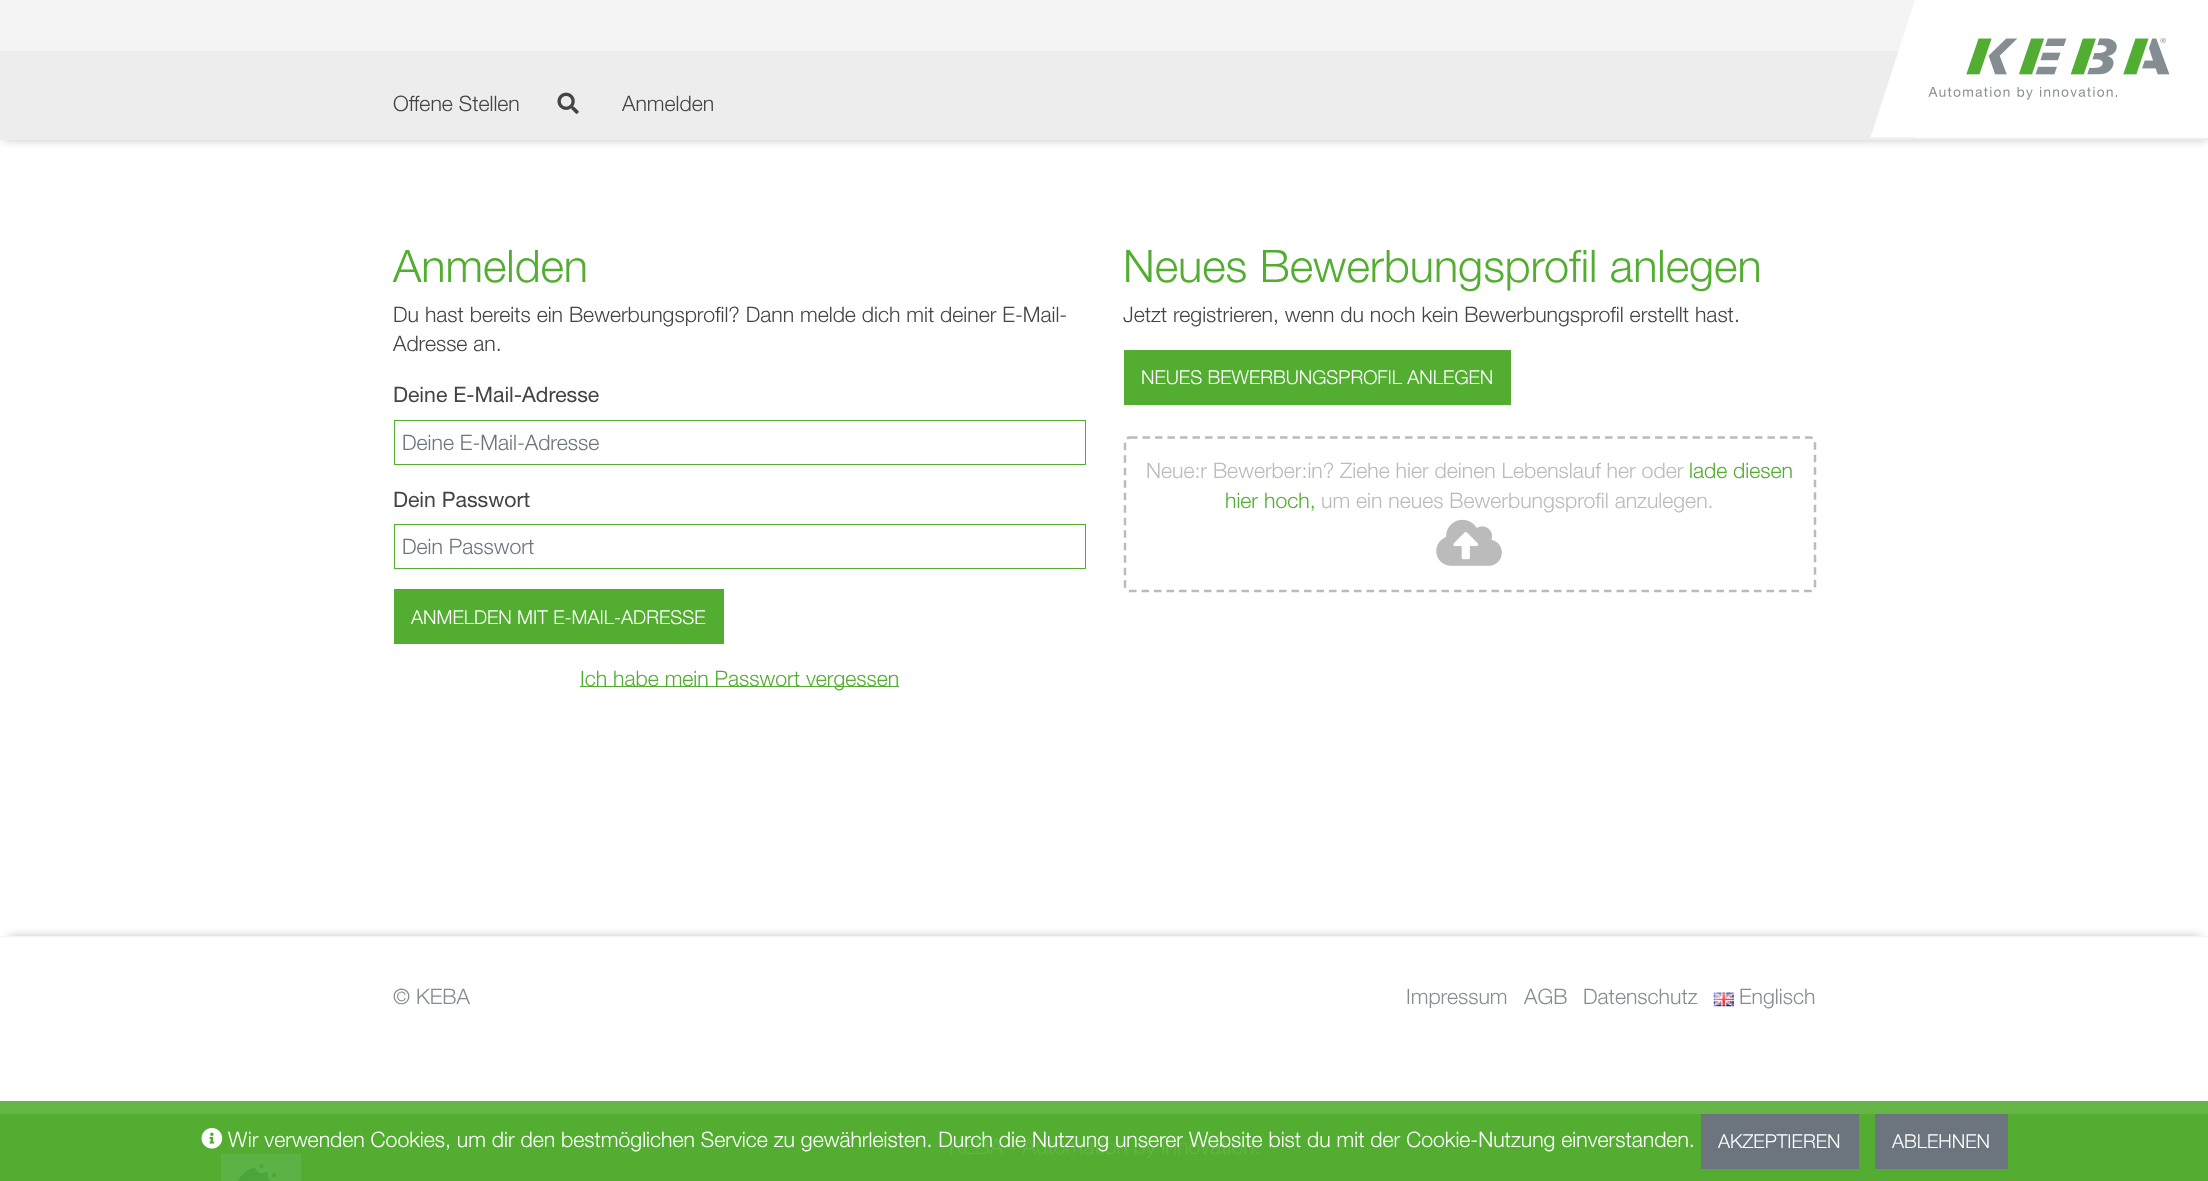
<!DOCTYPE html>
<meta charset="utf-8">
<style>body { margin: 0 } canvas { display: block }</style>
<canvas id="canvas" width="2208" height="1181"></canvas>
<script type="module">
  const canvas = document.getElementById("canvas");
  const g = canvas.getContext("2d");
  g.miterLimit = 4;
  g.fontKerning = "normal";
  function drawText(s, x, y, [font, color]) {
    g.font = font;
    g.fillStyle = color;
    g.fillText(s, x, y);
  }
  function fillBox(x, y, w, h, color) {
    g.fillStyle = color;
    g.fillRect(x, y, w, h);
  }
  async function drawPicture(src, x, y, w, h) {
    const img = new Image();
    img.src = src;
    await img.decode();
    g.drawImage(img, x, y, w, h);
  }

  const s1 = ["300 21.25px 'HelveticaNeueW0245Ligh'", "#444444"];
  const s2 = ["300 45px 'HelveticaNeueW0245Ligh'", "#53AD31"];
  const s3 = ["21.25px 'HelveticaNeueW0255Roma'", "#444444"];
  const s4 = ["300 21.25px 'HelveticaNeueW0245Ligh'", "#6C757D"];
  const s5 = ["300 19.1px 'HelveticaNeueW0245Ligh'", "#FFFFFF"];
  const s6 = ["300 21.25px 'HelveticaNeueW0245Ligh'", "#53AD31"];
  const s7 = ["300 21.25px 'HelveticaNeueW0245Ligh'", "#BBBBBB"];
  const s8 = ["300 21.25px 'HelveticaNeueW0245Ligh'", "#848D92"];
  const s9 = ["300 21.25px 'HelveticaNeueW0245Ligh'", "#64B546"];
  const s10 = ["300 21.25px 'HelveticaNeueW0245Ligh'", "#FFFFFF"];

  fillBox(0, 0, 2208, 1181, "#FFFFFF");
  fillBox(0, 1101, 2208, 13, "#64B546");
  g.fillStyle = "rgba(132, 141, 146, 0.5)";
  g.filter = "blur(5px)";
  g.beginPath();
  g.rect(3, 51, 2203, 89);
  g.fill();
  g.filter = "none";
  fillBox(0, 0, 1915, 51, "#F4F4F4");
  fillBox(0, 51, 2208, 89, "#EDEDED");
  fillBox(1915, 42, 293, 96, "#FFFFFF");
  await drawPicture("pic1.png", 1870, 1, 45, 137);
  await drawPicture("pic2.png", 1966, 38, 204, 37);
  await drawPicture("pic3.png", 1928, 86, 189, 14);
  drawText("Offene Stellen", 393, 111, s1);
  await drawPicture("pic4.png", 557, 92, 22, 22);
  drawText("Anmelden", 622, 111, s1);
  drawText("Anmelden", 393, 282, s2);
  drawText("Du hast bereits ein Bewerbungsprofil? Dann melde dich mit deiner E-Mail-", 393, 322, s1);
  drawText("Adresse an.", 393, 351, s1);
  drawText("Deine E-Mail-Adresse", 393, 402, s3);
  g.strokeStyle = "#53AD31";
  g.strokeRect(394.5, 420.5, 691, 44);
  drawText("Deine E-Mail-Adresse", 402, 450, s4);
  drawText("Dein Passwort", 393, 507, s3);
  g.strokeRect(394.5, 524.5, 691, 44);
  drawText("Dein Passwort", 402, 554, s4);
  fillBox(394, 589, 330, 55, "#53AD31");
  drawText("ANMELDEN MIT E-MAIL-ADRESSE", 411, 624, s5);
  fillBox(580, 686, 319, 1, "#53AD31");
  drawText("Ich habe mein Passwort vergessen", 580, 686, s6);
  drawText("Neues Bewerbungsprofil anlegen", 1123, 282, s2);
  drawText("Jetzt registrieren, wenn du noch kein Bewerbungsprofil erstellt hast.", 1123, 322, s1);
  fillBox(1124, 350, 387, 55, "#53AD31");
  drawText("NEUES BEWERBUNGSPROFIL ANLEGEN", 1141, 384, s5);
  g.beginPath();
  g.moveTo(1130, 437.5);
  g.lineTo(1810, 437.5);
  g.bezierCurveTo(1813, 437.5, 1815, 439.5, 1815, 442.5);
  g.lineTo(1815, 586);
  g.bezierCurveTo(1815, 589, 1813, 591, 1810, 591);
  g.lineTo(1130, 591);
  g.bezierCurveTo(1127, 591, 1125, 589, 1125, 586);
  g.lineTo(1125, 442.5);
  g.bezierCurveTo(1125, 439.5, 1127, 437.5, 1130, 437.5);
  g.closePath();
  g.strokeStyle = "#BBBBBB";
  g.lineWidth = 2.5;
  g.setLineDash([7.5, 5]);
  g.stroke();
  drawText("Neue:r Bewerber:in? Ziehe hier deinen Lebenslauf her oder", 1146, 478, s7);
  drawText("lade diesen", 1689, 478, s6);
  drawText("hier hoch,", 1225, 508, s6);
  drawText("um ein neues Bewerbungsprofil anzulegen.", 1321, 508, s7);
  await drawPicture("pic5.png", 1436, 519, 66, 47);
  g.save();
  g.beginPath();
  g.rect(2, 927, 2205, 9);
  g.clip();
  g.fillStyle = "rgba(132, 141, 146, 0.5)";
  g.filter = "blur(5px)";
  g.beginPath();
  g.rect(9, 936, 2191, 60);
  g.fill();
  g.filter = "none";
  g.restore();
  fillBox(0, 936, 2208, 1, "#F4F4F4");
  drawText("© KEBA", 393, 1004, s8);
  drawText("Impressum", 1406, 1004, s8);
  drawText("AGB", 1524, 1004, s8);
  drawText("Datenschutz", 1583, 1004, s8);
  await drawPicture("pic6.png", 1713, 992, 21, 15);
  drawText("Englisch", 1739, 1004, s8);
  fillBox(0, 1114, 2208, 67, "#53AD31");
  drawText("KEBA - Automation by innovation.", 949, 1154, s9);
  await drawPicture("pic7.png", 201, 1128, 22, 21);
  drawText("Wir verwenden Cookies, um dir den bestmöglichen Service zu gewährleisten. Durch die Nutzung unserer Website bist du mit der Cookie-Nutzung einverstanden.", 228, 1147, s10);
  fillBox(1701, 1114, 158, 55, "#6C757D");
  drawText("AKZEPTIEREN", 1718, 1148, s5);
  fillBox(1875, 1114, 133, 55, "#6C757D");
  drawText("ABLEHNEN", 1892, 1148, s5);
  fillBox(221, 1154, 80, 27, "#5DB245");
  await drawPicture("pic8.png", 238, 1164, 39, 17);
</script>
